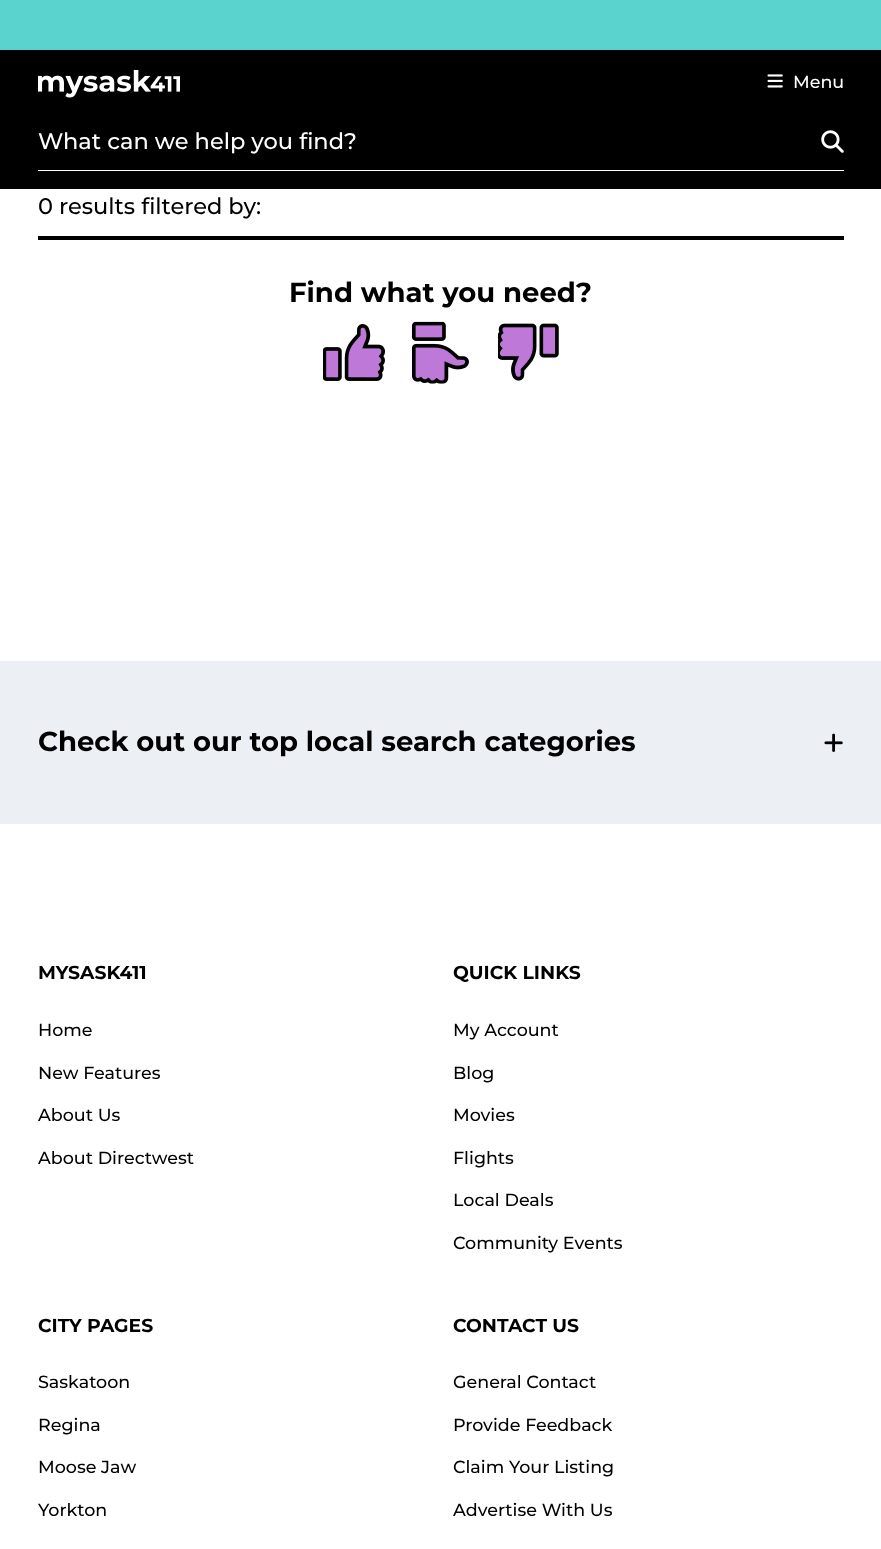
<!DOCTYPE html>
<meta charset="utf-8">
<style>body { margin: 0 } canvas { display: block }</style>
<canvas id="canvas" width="881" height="1549"></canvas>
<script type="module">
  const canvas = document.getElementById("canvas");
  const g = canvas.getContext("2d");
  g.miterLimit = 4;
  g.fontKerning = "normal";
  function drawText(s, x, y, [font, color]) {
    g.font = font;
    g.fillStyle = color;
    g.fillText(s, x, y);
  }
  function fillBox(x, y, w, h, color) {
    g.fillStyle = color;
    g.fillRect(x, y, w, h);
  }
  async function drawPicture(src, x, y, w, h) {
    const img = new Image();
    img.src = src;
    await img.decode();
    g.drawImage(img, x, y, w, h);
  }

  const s1 = ["500 17.5px Montserrat", "#FFFFFF"];
  const s2 = ["500 22.5px Montserrat", "#FFFFFF"];
  const s3 = ["500 22.5px Montserrat", "#000000"];
  const s4 = ["bold 27.5px Montserrat", "#000000"];
  const s5 = ["bold 18.75px Montserrat", "#000000"];
  const s6 = ["500 17.5px Montserrat", "#000000"];

  fillBox(0, 0, 881, 1549, "#FFFFFF");
  fillBox(0, 0, 881, 50, "#5AD2CD");
  fillBox(0, 50, 881, 139, "#000000");
  await drawPicture("pic1.png", 38, 70, 142, 28);
  await drawPicture("pic2.png", 767, 74, 16, 14);
  drawText("Menu", 793, 88, s1);
  fillBox(38, 170, 806, 1, "#FFFFFF");
  drawText("What can we help you find?", 38, 149, s2);
  await drawPicture("pic3.png", 821, 130, 23, 23);
  fillBox(38, 236, 806, 4, "#000000");
  drawText("0 results filtered by:", 38, 214, s3);
  drawText("Find what you need?", 289, 302, s4);
  await drawPicture("pic4.png", 323, 324, 62, 57);
  await drawPicture("pic5.png", 411, 321, 58, 63);
  await drawPicture("pic6.png", 498, 323, 61, 58);
  fillBox(0, 661, 881, 163, "#ECEFF4");
  drawText("Check out our top local search categories", 38, 751, s4);
  await drawPicture("pic7.png", 824, 733, 19, 19);
  drawText("MYSASK411", 38, 979, s5);
  drawText("Home", 38, 1036, s6);
  drawText("New Features", 38, 1079, s6);
  drawText("About Us", 38, 1121, s6);
  drawText("About Directwest", 38, 1164, s6);
  drawText("QUICK LINKS", 453, 979, s5);
  drawText("My Account", 453, 1036, s6);
  drawText("Blog", 453, 1079, s6);
  drawText("Movies", 453, 1121, s6);
  drawText("Flights", 453, 1164, s6);
  drawText("Local Deals", 453, 1206, s6);
  drawText("Community Events", 453, 1249, s6);
  drawText("CITY PAGES", 38, 1332, s5);
  drawText("Saskatoon", 38, 1388, s6);
  drawText("Regina", 38, 1431, s6);
  drawText("Moose Jaw", 38, 1473, s6);
  drawText("Yorkton", 38, 1516, s6);
  drawText("CONTACT US", 453, 1332, s5);
  drawText("General Contact", 453, 1388, s6);
  drawText("Provide Feedback", 453, 1431, s6);
  drawText("Claim Your Listing", 453, 1473, s6);
  drawText("Advertise With Us", 453, 1516, s6);
</script>
